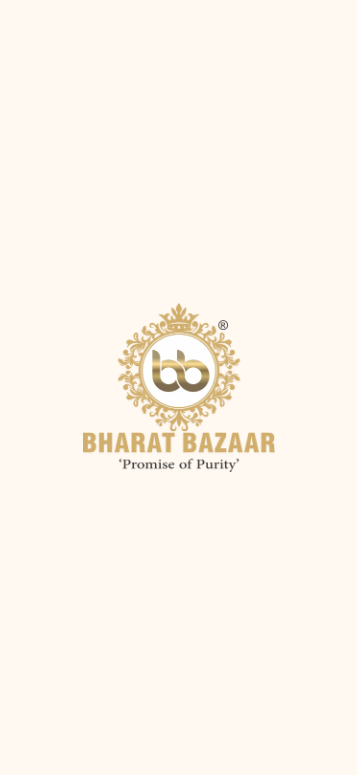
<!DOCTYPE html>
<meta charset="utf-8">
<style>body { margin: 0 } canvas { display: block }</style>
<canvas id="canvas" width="357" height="775"></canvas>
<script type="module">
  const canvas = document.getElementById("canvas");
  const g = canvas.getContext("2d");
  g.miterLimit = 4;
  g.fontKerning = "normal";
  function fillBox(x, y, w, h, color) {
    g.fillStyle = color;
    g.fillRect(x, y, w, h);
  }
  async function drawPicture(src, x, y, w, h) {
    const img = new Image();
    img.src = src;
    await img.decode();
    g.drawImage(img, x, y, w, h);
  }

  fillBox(0, 0, 357, 775, "#FFF9F1");
  await drawPicture("pic1.png", 83, 303, 192, 169);
</script>
